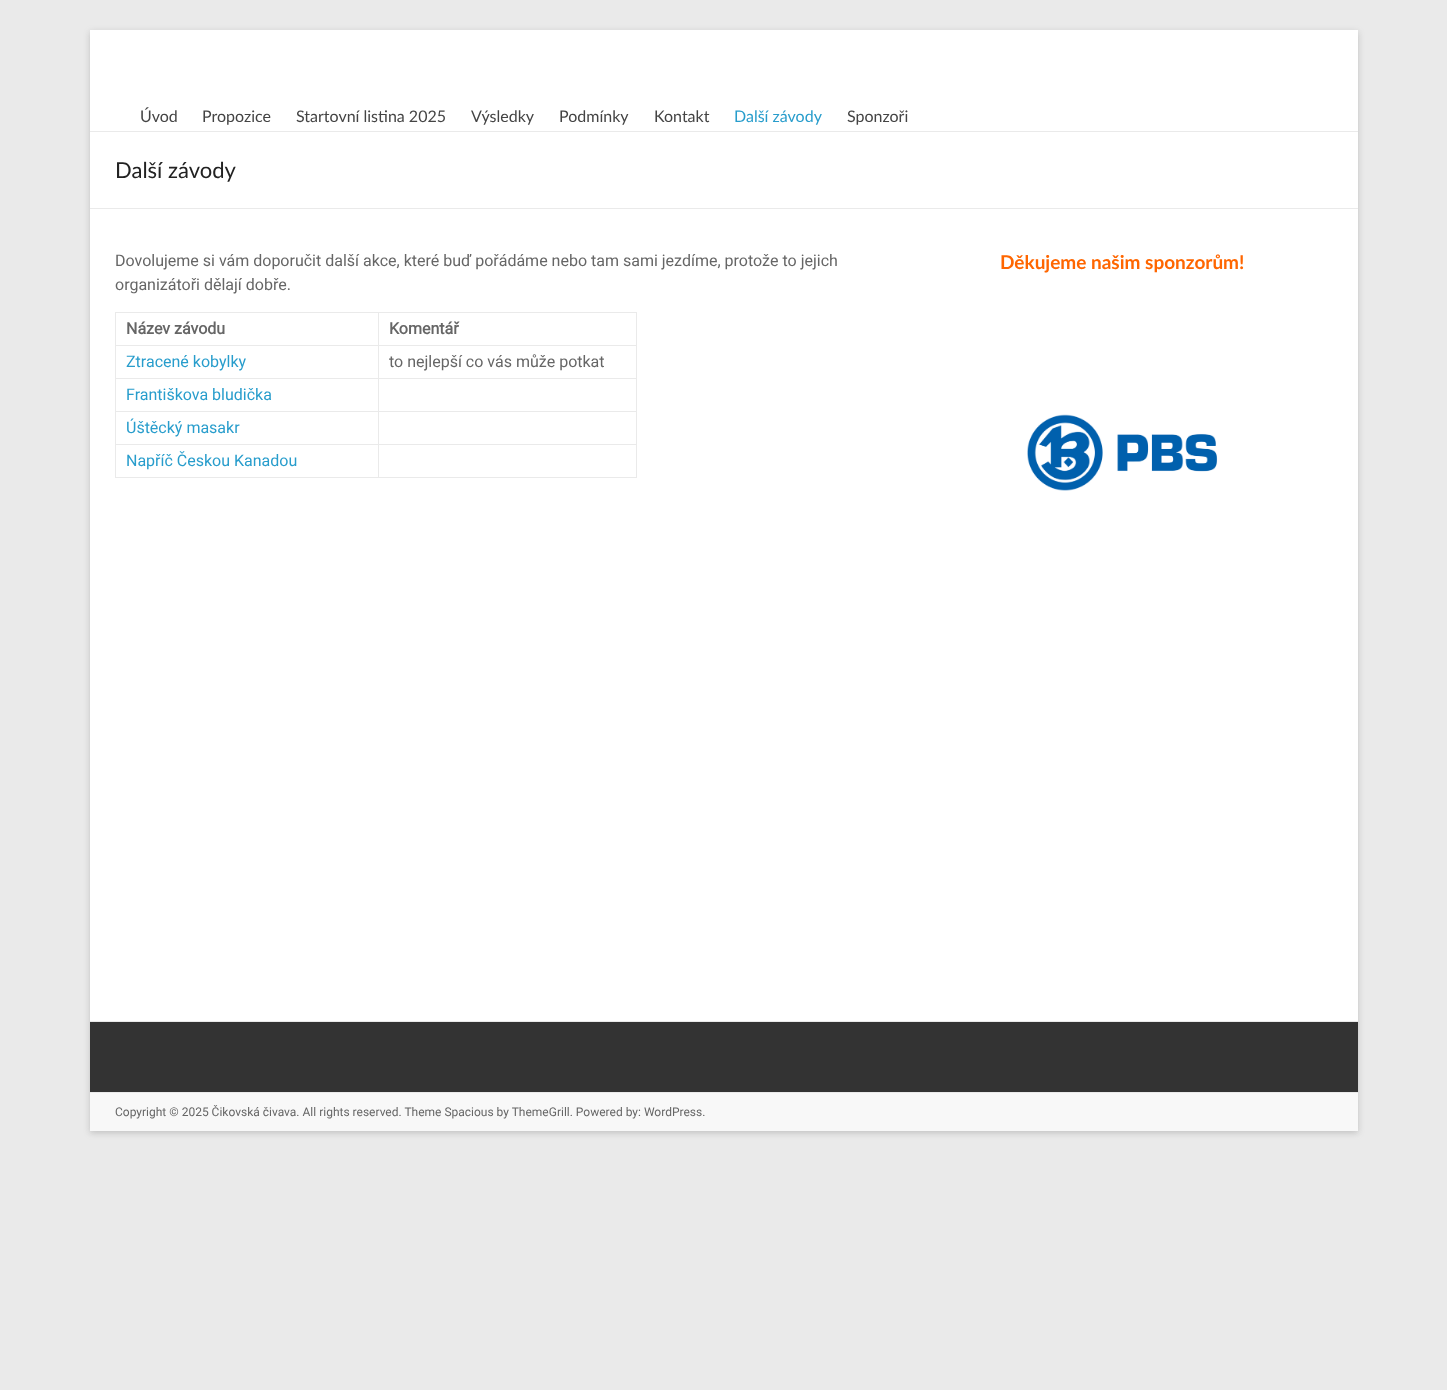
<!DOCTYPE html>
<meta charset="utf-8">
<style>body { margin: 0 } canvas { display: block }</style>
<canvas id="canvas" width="1447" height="1390"></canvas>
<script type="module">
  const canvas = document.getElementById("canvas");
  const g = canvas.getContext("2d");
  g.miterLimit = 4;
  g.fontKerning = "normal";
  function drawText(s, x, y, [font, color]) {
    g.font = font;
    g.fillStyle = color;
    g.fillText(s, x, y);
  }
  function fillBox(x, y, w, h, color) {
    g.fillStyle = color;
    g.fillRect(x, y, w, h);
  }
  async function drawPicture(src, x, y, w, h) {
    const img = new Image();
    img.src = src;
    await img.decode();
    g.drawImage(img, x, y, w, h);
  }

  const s1 = ["16px Lato", "#444444"];
  const s2 = ["16px Lato", "#289DCC"];
  const s3 = ["22px Lato", "#222222"];
  const s4 = ["16px Roboto", "#666666"];
  const s5 = ["bold 16px Roboto", "#666666"];
  const s6 = ["16px Roboto", "#289DCC"];
  const s7 = ["bold 19px Lato", "#FF6600"];
  const s8 = ["12px Roboto", "#666666"];

  fillBox(0, 0, 1447, 1390, "#EAEAEA");
  g.fillStyle = "rgba(100, 100, 100, 0.3)";
  g.filter = "blur(3px)";
  g.beginPath();
  g.rect(90, 32, 1268, 1101);
  g.fill();
  g.filter = "none";
  fillBox(90, 30, 1268, 991, "#FFFFFF");
  fillBox(90, 131, 1268, 1, "#EAEAEA");
  drawText("Úvod", 140, 122, s1);
  drawText("Propozice", 202, 122, s1);
  drawText("Startovní listina 2025", 296, 122, s1);
  drawText("Výsledky", 471, 122, s1);
  drawText("Podmínky", 559, 122, s1);
  drawText("Kontakt", 654, 122, s1);
  drawText("Další závody", 734, 122, s2);
  drawText("Sponzoři", 847, 122, s1);
  fillBox(90, 208, 1268, 1, "#EAEAEA");
  drawText("Další závody", 115, 178, s3);
  drawText("Dovolujeme si vám doporučit další akce, které buď pořádáme nebo tam sami jezdíme, protože to jejich", 115, 266, s4);
  drawText("organizátoři dělají dobře.", 115, 290, s4);
  fillBox(378, 312, 259, 1, "#EAEAEA");
  fillBox(378, 345, 259, 1, "#EAEAEA");
  fillBox(378, 378, 259, 1, "#EAEAEA");
  fillBox(378, 411, 259, 1, "#EAEAEA");
  fillBox(378, 444, 259, 1, "#EAEAEA");
  fillBox(636, 444, 1, 34, "#EAEAEA");
  fillBox(378, 477, 259, 1, "#EAEAEA");
  fillBox(378, 444, 1, 34, "#EAEAEA");
  fillBox(115, 444, 264, 1, "#EAEAEA");
  fillBox(378, 411, 1, 34, "#EAEAEA");
  fillBox(115, 411, 264, 1, "#EAEAEA");
  fillBox(378, 378, 1, 34, "#EAEAEA");
  fillBox(115, 378, 264, 1, "#EAEAEA");
  fillBox(378, 345, 1, 34, "#EAEAEA");
  fillBox(115, 345, 264, 1, "#EAEAEA");
  fillBox(378, 312, 1, 34, "#EAEAEA");
  fillBox(115, 312, 264, 1, "#EAEAEA");
  fillBox(115, 477, 264, 1, "#EAEAEA");
  fillBox(115, 444, 1, 34, "#EAEAEA");
  fillBox(115, 411, 1, 34, "#EAEAEA");
  fillBox(115, 378, 1, 34, "#EAEAEA");
  fillBox(115, 345, 1, 34, "#EAEAEA");
  fillBox(115, 312, 1, 34, "#EAEAEA");
  drawText("Název závodu", 126, 334, s5);
  fillBox(636, 411, 1, 34, "#EAEAEA");
  fillBox(636, 378, 1, 34, "#EAEAEA");
  fillBox(636, 345, 1, 34, "#EAEAEA");
  fillBox(636, 312, 1, 34, "#EAEAEA");
  drawText("Komentář", 389, 334, s5);
  drawText("Ztracené kobylky", 126, 367, s6);
  drawText("to nejlepší co vás může potkat", 389, 367, s4);
  drawText("Františkova bludička", 126, 400, s6);
  drawText("Úštěcký masakr", 126, 433, s6);
  drawText("Napříč Českou Kanadou", 126, 466, s6);
  drawText("Děkujeme našim sponzorům!", 1000, 269, s7);
  await drawPicture("pic1.png", 1027, 414, 191, 77);
  fillBox(90, 1022, 1268, 70, "#333333");
  fillBox(90, 1021, 1268, 1, "#EAEAEA");
  fillBox(90, 1093, 1268, 38, "#F8F8F8");
  fillBox(90, 1092, 1268, 1, "#EAEAEA");
  drawText("Copyright © 2025 Čikovská čivava. All rights reserved. Theme Spacious by ThemeGrill. Powered by: WordPress.", 115, 1116, s8);
</script>
